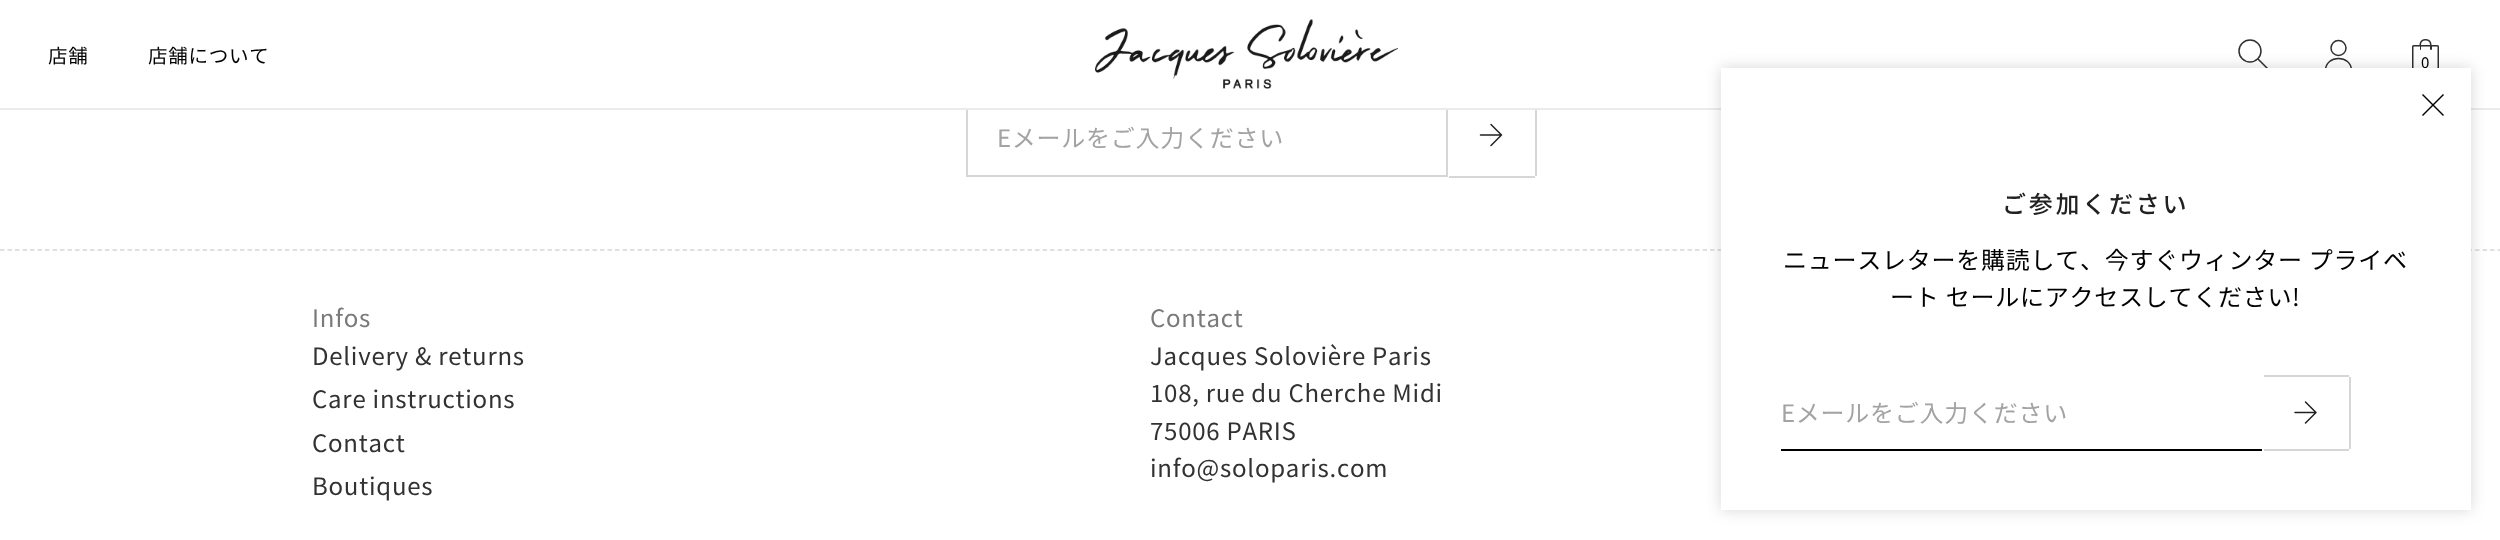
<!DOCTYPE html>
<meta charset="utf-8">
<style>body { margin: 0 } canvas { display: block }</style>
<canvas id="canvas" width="2500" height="540"></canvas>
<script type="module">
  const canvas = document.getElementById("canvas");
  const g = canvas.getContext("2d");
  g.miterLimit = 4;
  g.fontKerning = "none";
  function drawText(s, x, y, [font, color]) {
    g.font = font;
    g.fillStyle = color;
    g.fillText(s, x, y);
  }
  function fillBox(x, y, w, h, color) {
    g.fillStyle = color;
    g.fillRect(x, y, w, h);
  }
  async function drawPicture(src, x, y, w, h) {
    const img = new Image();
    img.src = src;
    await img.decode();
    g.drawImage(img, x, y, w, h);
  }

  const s1 = ["19.5px Noto Sans JP", "#000000"];
  const s2 = ["15px Noto Sans JP", "#000000"];
  const s3 = ["24px Noto Sans JP", "#A3A3A3"];
  const s4 = ["24px Noto Sans JP", "#7A7A7A"];
  const s5 = ["24px Noto Sans JP", "#323232"];
  const s6 = ["500 24px Noto Sans JP", "#212121"];
  const s7 = ["24px Noto Sans JP", "#000000"];

  fillBox(0, 0, 2500, 540, "#FFFFFF");
  g.strokeStyle = "#D6D6D6";
  g.lineWidth = 2;
  g.strokeRect(967, 94, 480, 82);
  fillBox(966, 93, 482, 15, "#FFFFFF");
  fillBox(0, 108, 2500, 2, "#EBEBEB");
  g.letterSpacing = "0.75px";
  drawText("店舗", 48, 63, s1);
  drawText("店舗について", 148, 63, s1);
  await drawPicture("pic1.png", 1095, 19, 303, 70);
  g.beginPath();
  g.moveTo(2269, 70);
  g.lineTo(2258.5, 59.5);
  g.strokeStyle = "#303030";
  g.lineWidth = 1.5;
  g.lineCap = "square";
  g.stroke();
  g.beginPath();
  g.arc(2250, 51, 11, 0, Math.PI * 2);
  g.stroke();
  g.beginPath();
  g.arc(2338.5, 48, 7.5, 0, Math.PI * 2);
  g.stroke();
  g.beginPath();
  g.moveTo(2325.5, 70.5);
  g.bezierCurveTo(2325.5, 54.5, 2351.5, 54.5, 2351.5, 70.5);
  g.stroke();
  await drawPicture("pic2.png", 2412, 39, 27, 29);
  drawText("0", 2421, 68, s2);
  g.beginPath();
  g.moveTo(0, 250);
  g.lineTo(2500.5, 250);
  g.strokeStyle = "#D6D6D6";
  g.lineCap = "butt";
  g.setLineDash([4.5, 3]);
  g.stroke();
  drawText("Eメールをご入力ください", 997, 147, s3);
  g.beginPath();
  g.moveTo(1480.5, 135);
  g.lineTo(1501.5, 135);
  g.moveTo(1491, 124.5);
  g.lineTo(1501.5, 135);
  g.lineTo(1491, 145.5);
  g.strokeStyle = "#212121";
  g.lineCap = "round";
  g.lineJoin = "round";
  g.setLineDash([]);
  g.stroke();
  fillBox(1535, 110, 2, 66, "#D6D6D6");
  fillBox(1449, 176, 86, 2, "#D6D6D6");
  drawText("Infos", 312, 327, s4);
  drawText("Delivery & returns", 312, 365, s5);
  drawText("Care instructions", 312, 408, s5);
  drawText("Contact", 312, 452, s5);
  drawText("Boutiques", 312, 495, s5);
  drawText("Contact", 1150, 327, s4);
  drawText("Jacques Solovière Paris", 1150, 365, s5);
  drawText("108, rue du Cherche Midi", 1150, 402, s5);
  drawText("75006 PARIS", 1150, 440, s5);
  drawText("info@soloparis.com", 1150, 477, s5);
  g.fillStyle = "rgba(0, 0, 0, 0.16)";
  g.filter = "blur(7.5px)";
  g.beginPath();
  g.rect(1721, 68, 750, 442);
  g.fill();
  g.filter = "none";
  fillBox(1721, 68, 750, 442, "#FFFFFF");
  g.fillStyle = "#000000";
  g.beginPath();
  g.moveTo(2443, 94);
  g.lineTo(2444, 95);
  g.lineTo(2423, 116);
  g.lineTo(2422, 115);
  g.closePath();
  g.fill();
  g.beginPath();
  g.moveTo(2422, 95);
  g.lineTo(2423, 94);
  g.lineTo(2444, 115);
  g.lineTo(2443, 116);
  g.closePath();
  g.fill();
  g.letterSpacing = "2.75px";
  drawText("ご参加ください", 2002, 213, s6);
  g.letterSpacing = "0.75px";
  drawText("ニュースレターを購読して、今すぐウィンター プライベ", 1783, 269, s7);
  drawText("ート セールにアクセスしてください!", 1890, 306, s7);
  fillBox(1781, 449, 481, 2, "#000000");
  drawText("Eメールをご入力ください", 1781, 422, s3);
  g.beginPath();
  g.moveTo(2295, 412.5);
  g.lineTo(2316, 412.5);
  g.moveTo(2305.5, 402);
  g.lineTo(2316, 412.5);
  g.lineTo(2305.5, 423);
  g.stroke();
  fillBox(2264, 375, 85, 2, "#D6D6D6");
  fillBox(2349, 377, 2, 72, "#D6D6D6");
  fillBox(2264, 449, 85, 2, "#D6D6D6");
</script>
